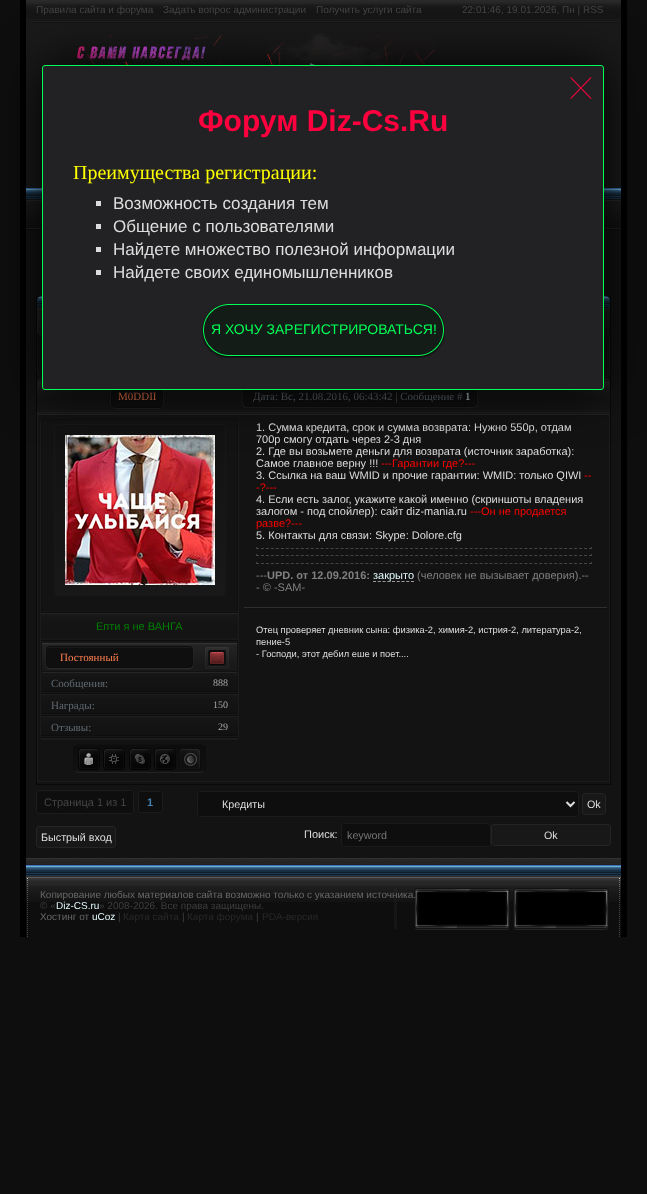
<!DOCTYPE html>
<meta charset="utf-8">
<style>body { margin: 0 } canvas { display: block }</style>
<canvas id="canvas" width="647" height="1194"></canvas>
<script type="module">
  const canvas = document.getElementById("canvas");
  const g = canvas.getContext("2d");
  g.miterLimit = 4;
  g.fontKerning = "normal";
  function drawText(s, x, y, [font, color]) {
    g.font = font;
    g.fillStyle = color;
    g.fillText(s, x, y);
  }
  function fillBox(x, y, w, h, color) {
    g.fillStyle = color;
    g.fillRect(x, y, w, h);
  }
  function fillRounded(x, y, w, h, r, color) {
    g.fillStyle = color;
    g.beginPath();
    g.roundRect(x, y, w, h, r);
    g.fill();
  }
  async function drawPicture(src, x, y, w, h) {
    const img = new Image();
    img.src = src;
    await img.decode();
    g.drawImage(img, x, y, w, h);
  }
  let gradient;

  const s1 = ["10px Liberation Sans", "#454545"];
  const s2 = ["11px Liberation Serif", "#FF7F50"];
  const s3 = ["11px Liberation Serif", "#616A72"];
  const s4 = ["11px Liberation Serif", "#E4FAFD"];
  const s5 = ["11px Liberation Sans", "#DDDDDD"];
  const s6 = ["11px Liberation Sans", "#FF0000"];
  const s7 = ["11px Liberation Sans", "#808080"];
  const s8 = ["bold 11px Liberation Sans", "#808080"];
  const s9 = ["11px Liberation Sans", "#E4FAFD"];
  const s10 = ["9.35px Liberation Sans", "#DDDDDD"];
  const s11 = ["11px Liberation Sans", "#008000"];
  const s12 = ["10px Liberation Serif", "#A6A6A6"];
  const s13 = ["11px Liberation Sans", "#454545"];
  const s14 = ["bold 11px Liberation Sans", "#4682B4"];
  const s15 = ["10.75px Liberation Sans", "#DDDDDD"];
  const s16 = ["10.75px Liberation Sans", "#757575"];
  const s17 = ["10px Liberation Sans", "#696969"];
  const s18 = ["10px Liberation Sans", "#3F3F3F"];
  const s19 = ["10px Liberation Sans", "#E4FAFD"];
  const s20 = ["10px Liberation Sans", "#292929"];
  const s21 = ["bold 30px Liberation Sans", "#FF003F"];
  const s22 = ["20px Liberation Serif", "#FFFF00"];
  const s23 = ["17px Liberation Sans", "#DDDDDD"];
  const s24 = ["14px Liberation Sans", "#00FF54"];

  fillBox(0, 0, 647, 1194, "#0E0E0E");
  fillBox(20, 0, 6, 937, "#000000");
  fillBox(621, 0, 6, 937, "#000000");
  await drawPicture("pic1.png", 26, 0, 595, 23);
  drawText("Правила сайта и форума", 36, 13, s1);
  drawText("Задать вопрос администрации", 163, 13, s1);
  drawText("Получить услуги сайта", 316, 13, s1);
  drawText("22:01:46, 19.01.2026, Пн | RSS", 462, 13, s1);
  fillBox(26, 23, 595, 165, "#1A1A1A");
  await drawPicture("pic2.png", 50, 33, 429, 32);
  await drawPicture("pic3.png", 26, 188, 595, 41);
  fillBox(26, 230, 595, 628, "#131313");
  fillBox(610, 296, 1, 489, "#090909");
  fillBox(36, 784, 575, 1, "#090909");
  fillBox(36, 296, 1, 489, "#090909");
  await drawPicture("pic4.png", 37, 296, 573, 41);
  g.fillStyle = "#1B1B1B";
  g.beginPath();
  g.moveTo(37, 337);
  g.lineTo(610, 337);
  g.lineTo(610, 372);
  g.bezierCurveTo(610, 375, 608, 377, 605, 377);
  g.lineTo(42, 377);
  g.bezierCurveTo(39, 377, 37, 375, 37, 372);
  g.closePath();
  g.moveTo(38, 337);
  g.lineTo(609, 337);
  g.lineTo(609, 372);
  g.bezierCurveTo(609, 374, 607, 376, 605, 376);
  g.lineTo(42, 376);
  g.bezierCurveTo(40, 376, 38, 374, 38, 372);
  g.closePath();
  g.fill("evenodd");
  await drawPicture("pic5.png", 37, 379, 573, 36);
  fillRounded(110, 384, 54, 25, 5, "#101010");
  g.beginPath();
  g.roundRect(111.5, 385.5, 51, 22, 3.5);
  g.strokeStyle = "#0D0D0D";
  g.stroke();
  g.beginPath();
  g.roundRect(110.5, 384.5, 53, 24, 4.5);
  g.strokeStyle = "#202020";
  g.stroke();
  drawText("M0DDII", 118, 400, s2);
  g.fillStyle = "#101010";
  g.beginPath();
  g.roundRect(242, 384, 223, 24, [5, 0, 0, 5]);
  g.fill();
  g.beginPath();
  g.roundRect(243.5, 385.5, 221, 21, [3.5, 0, 0, 3.5]);
  g.strokeStyle = "#0D0D0D";
  g.stroke();
  g.fillStyle = "#202020";
  g.beginPath();
  g.moveTo(247, 384);
  g.lineTo(465, 384);
  g.lineTo(465, 408);
  g.lineTo(247, 408);
  g.bezierCurveTo(244, 408, 242, 406, 242, 403);
  g.lineTo(242, 389);
  g.bezierCurveTo(242, 386, 244, 384, 247, 384);
  g.closePath();
  g.moveTo(247, 385);
  g.lineTo(465, 385);
  g.lineTo(465, 407);
  g.lineTo(247, 407);
  g.bezierCurveTo(242, 407, 243, 399, 243, 396);
  g.bezierCurveTo(243, 393, 242, 385, 247, 385);
  g.closePath();
  g.fill("evenodd");
  drawText("Дата: Вс, 21.08.2016, 06:43:42 | Сообщение #", 253, 400, s3);
  g.fillStyle = "#101010";
  g.beginPath();
  g.roundRect(465, 384, 13, 24, [0, 5, 5, 0]);
  g.fill();
  g.beginPath();
  g.roundRect(465.5, 385.5, 11, 21, [0, 3.5, 3.5, 0]);
  g.stroke();
  g.fillStyle = "#202020";
  g.beginPath();
  g.moveTo(465, 384);
  g.bezierCurveTo(469, 384, 477, 382.5, 478, 388);
  g.lineTo(478, 404);
  g.bezierCurveTo(477, 409.5, 469, 408, 465, 408);
  g.closePath();
  g.moveTo(465, 385);
  g.lineTo(473, 385);
  g.bezierCurveTo(475, 385, 477, 387, 477, 389);
  g.lineTo(477, 403);
  g.bezierCurveTo(477, 405, 475, 407, 473, 407);
  g.lineTo(465, 407);
  g.closePath();
  g.fill("evenodd");
  drawText("1", 465, 400, s4);
  fillBox(609, 415, 1, 367, "#1C1C1C");
  fillBox(37, 781, 573, 1, "#1C1C1C");
  fillBox(37, 415, 1, 367, "#1C1C1C");
  drawText("1. Сумма кредита, срок и сумма возврата: Нужно 550р, отдам", 256, 431, s5);
  drawText("700р смогу отдать через 2-3 дня", 256, 443, s5);
  drawText("2. Где вы возьмете деньги для возврата (источник заработка):", 256, 455, s5);
  drawText("Самое главное верну !!!", 256, 467, s5);
  drawText("---Гарантии где?---", 381, 467, s6);
  drawText("3. Ссылка на ваш WMID и прочие гарантии: WMID: только QIWI", 256, 479, s5);
  drawText("--", 584, 479, s6);
  drawText("-?---", 256, 491, s6);
  drawText("4. Если есть залог, укажите какой именно (скриншоты владения", 256, 503, s5);
  drawText("залогом - под спойлер): сайт diz-mania.ru", 256, 515, s5);
  drawText("---Он не продается", 470, 515, s6);
  drawText("разве?---", 256, 527, s6);
  drawText("5. Контакты для связи: Skype: Dolore.cfg", 256, 539, s5);
  fillBox(591, 547, 1, 2, "#454545");
  g.beginPath();
  g.moveTo(256, 548.5);
  g.lineTo(592, 548.5);
  g.strokeStyle = "#454545";
  g.setLineDash([3, 1.97]);
  g.stroke();
  fillBox(256, 547, 1, 2, "#454545");
  fillBox(591, 554, 1, 2, "#454545");
  g.beginPath();
  g.moveTo(256, 555.5);
  g.lineTo(592, 555.5);
  g.stroke();
  fillBox(256, 554, 1, 2, "#454545");
  fillBox(591, 562, 1, 2, "#454545");
  g.beginPath();
  g.moveTo(256, 563.5);
  g.lineTo(592, 563.5);
  g.stroke();
  fillBox(256, 562, 1, 2, "#454545");
  drawText("---", 256, 579, s7);
  drawText("UPD. от 12.09.2016:", 267, 579, s8);
  g.beginPath();
  g.moveTo(373, 581.5);
  g.lineTo(414, 581.5);
  g.strokeStyle = "#9C9C9C";
  g.setLineDash([3, 1.75]);
  g.stroke();
  drawText("закрыто", 373, 579, s9);
  drawText("(человек не вызывает доверия).--", 417, 579, s7);
  drawText("- © -SAM-", 256, 591, s7);
  fillBox(244, 607, 363, 1, "#2E2E2E");
  fillBox(244, 608, 363, 1, "#101010");
  drawText("Отец проверяет дневник сына: физика-2, химия-2, истрия-2, литература-2,", 256, 633, s10);
  drawText("пение-5", 256, 645, s10);
  drawText("- Господи, этот дебил еше и поет....", 256, 657, s10);
  g.beginPath();
  g.moveTo(43, 419.5);
  g.lineTo(236, 419.5);
  g.bezierCurveTo(237, 419.5, 237.5, 420.5, 237.5, 422);
  g.lineTo(237.5, 737);
  g.bezierCurveTo(237.5, 738, 237, 738.5, 236, 738.5);
  g.lineTo(43, 738.5);
  g.bezierCurveTo(42, 738.5, 41.5, 738, 41.5, 737);
  g.lineTo(41.5, 422);
  g.bezierCurveTo(41.5, 420.5, 42, 419.5, 43, 419.5);
  g.closePath();
  g.strokeStyle = "#0F0F0F";
  g.setLineDash([]);
  g.stroke();
  g.fillStyle = "#1B1B1B";
  g.beginPath();
  g.moveTo(43, 419);
  g.lineTo(236, 419);
  g.bezierCurveTo(238, 419, 239, 420, 239, 422);
  g.lineTo(239, 737);
  g.bezierCurveTo(239, 739, 238, 740, 236, 740);
  g.lineTo(43, 740);
  g.bezierCurveTo(41, 740, 40, 739, 40, 737);
  g.lineTo(40, 422);
  g.bezierCurveTo(40, 420, 41, 419, 43, 419);
  g.closePath();
  g.moveTo(43, 419);
  g.lineTo(236, 419);
  g.bezierCurveTo(237, 419, 238, 420, 238, 422);
  g.lineTo(238, 737);
  g.bezierCurveTo(238, 738, 237, 739, 236, 739);
  g.lineTo(43, 739);
  g.bezierCurveTo(42, 739, 41, 738, 41, 737);
  g.lineTo(41, 422);
  g.bezierCurveTo(41, 420, 42, 419, 43, 419);
  g.closePath();
  g.fill("evenodd");
  g.save();
  g.beginPath();
  g.roundRect(54, 424, 172, 172, 5);
  g.clip();
  gradient = g.createLinearGradient(138, 424, 143, 689);
  gradient.addColorStop(0, "#121212");
  gradient.addColorStop(1, "#1C1C1C");
  g.fillStyle = gradient;
  g.fillRect(55, 425, 170, 170);
  g.restore();
  g.beginPath();
  g.roundRect(54.5, 424.5, 171, 171, 4.5);
  g.strokeStyle = "#181818";
  g.stroke();
  await drawPicture("pic6.png", 65, 435, 150, 150);
  fillBox(237, 641, 1, 32, "#121212");
  fillBox(41, 641, 1, 32, "#121212");
  await drawPicture("pic7.png", 41, 611, 197, 31);
  drawText("Епти я не ВАНГА", 96, 630, s11);
  await drawPicture("pic8.png", 42, 642, 195, 31);
  await drawPicture("pic9.png", 45, 646, 149, 24);
  drawText("Постоянный", 60, 661, s2);
  await drawPicture("pic10.png", 205, 647, 24, 23);
  await drawPicture("pic11.png", 41, 673, 197, 22);
  drawText("Сообщения:", 51, 687, s3);
  drawText("888", 213, 686, s12);
  await drawPicture("pic11.png", 41, 695, 197, 22);
  drawText("Награды:", 51, 709, s3);
  drawText("150", 213, 708, s12);
  await drawPicture("pic11.png", 41, 717, 197, 22);
  drawText("Отзывы:", 51, 731, s3);
  drawText("29", 218, 730, s12);
  await drawPicture("pic12.png", 73, 745, 133, 26);
  g.beginPath();
  g.moveTo(75, 746);
  g.lineTo(77.5, 744.5);
  g.lineTo(180.5, 744.5);
  g.lineTo(201, 744.5);
  g.lineTo(204, 746);
  g.strokeStyle = "#101010";
  g.stroke();
  g.beginPath();
  g.moveTo(204, 746);
  g.bezierCurveTo(205, 746.5, 205.5, 748, 205.5, 749);
  g.lineTo(205.5, 768);
  g.bezierCurveTo(205.5, 769, 205, 770.5, 204, 771);
  g.strokeStyle = "#0D0D0D";
  g.stroke();
  g.beginPath();
  g.moveTo(204, 771);
  g.lineTo(201.5, 772.5);
  g.lineTo(98.5, 772.5);
  g.lineTo(78, 772.5);
  g.lineTo(75, 771);
  g.strokeStyle = "#232323";
  g.stroke();
  g.beginPath();
  g.moveTo(75, 771);
  g.bezierCurveTo(74, 770.5, 73.5, 769, 73.5, 768);
  g.lineTo(73.5, 749);
  g.bezierCurveTo(73.5, 748, 74, 746.5, 75, 746);
  g.strokeStyle = "#0D0D0D";
  g.stroke();
  await drawPicture("pic13.png", 78, 748, 22, 22);
  await drawPicture("pic14.png", 103, 748, 22, 22);
  await drawPicture("pic15.png", 129, 748, 22, 22);
  await drawPicture("pic16.png", 154, 748, 22, 22);
  await drawPicture("pic17.png", 179, 749, 22, 21);
  g.fillStyle = "#0E0E0E";
  g.beginPath();
  g.roundRect(36.5, 790.5, 97, 23, 2.5);
  g.fill();
  g.strokeStyle = "#1C1C1C";
  g.stroke();
  drawText("Страница 1 из 1", 44, 806, s13);
  g.fillStyle = "#0E0E0E";
  g.beginPath();
  g.roundRect(138.5, 791.5, 24, 21, 2.5);
  g.fill();
  g.stroke();
  drawText("1", 147, 806, s14);
  g.fillStyle = "#0E0E0E";
  g.beginPath();
  g.roundRect(197.5, 791.5, 381, 25, 2.5);
  g.fill();
  g.strokeStyle = "#1B1B1C";
  g.stroke();
  g.beginPath();
  g.moveTo(566.5, 802);
  g.lineTo(570.5, 806);
  g.lineTo(574.5, 802);
  g.strokeStyle = "#DDDDDD";
  g.lineWidth = 2;
  g.stroke();
  drawText("Кредиты", 222, 808, s15);
  g.fillStyle = "#181818";
  g.beginPath();
  g.roundRect(582.5, 793.5, 23, 21, 2.5);
  g.fill();
  g.strokeStyle = "#242424";
  g.lineWidth = 1;
  g.stroke();
  drawText("Ok", 587, 808, s15);
  g.fillStyle = "#181818";
  g.beginPath();
  g.roundRect(36.5, 826.5, 79, 21, 2.5);
  g.fill();
  g.stroke();
  drawText("Быстрый вход", 41, 841, s15);
  drawText("Поиск:", 304, 838, s5);
  g.fillStyle = "#0E0E0E";
  g.beginPath();
  g.roundRect(341.5, 823.5, 149, 23, 2.5);
  g.fill();
  g.strokeStyle = "#1B1B1C";
  g.stroke();
  drawText("keyword", 347, 839, s16);
  g.fillStyle = "#181818";
  g.beginPath();
  g.roundRect(491.5, 824.5, 119, 21, 2.5);
  g.fill();
  g.strokeStyle = "#242424";
  g.stroke();
  drawText("Ok", 544, 839, s15);
  await drawPicture("pic18.png", 26, 858, 595, 44);
  await drawPicture("pic19.png", 27, 878, 1, 59);
  await drawPicture("pic20.png", 394, 888, 3, 41);
  await drawPicture("pic21.png", 414, 888, 96, 42);
  await drawPicture("pic21.png", 513, 888, 96, 42);
  await drawPicture("pic19.png", 619, 878, 1, 59);
  drawText("Копирование любых материалов сайта возможно только с указанием источника.", 40, 898, s17);
  drawText("© «", 40, 909, s18);
  drawText("Diz-CS.ru", 56, 909, s19);
  drawText("» 2008-2026. Все права защищены.", 99, 909, s18);
  drawText("Хостинг от", 40, 920, s17);
  drawText("uCoz", 92, 920, s19);
  drawText("|", 118, 920, s18);
  drawText("Карта сайта", 123, 920, s20);
  drawText("|", 182, 920, s18);
  drawText("Карта форума", 187, 920, s20);
  drawText("|", 256, 920, s18);
  drawText("PDA-версия", 262, 920, s20);
  g.fillStyle = "#000000";
  g.filter = "blur(25px)";
  g.beginPath();
  g.roundRect(42, 65, 562, 325, 3);
  g.fill();
  g.filter = "none";
  g.fillStyle = "#222224";
  g.beginPath();
  g.roundRect(42.5, 65.5, 561, 324, 2.5);
  g.fill();
  g.strokeStyle = "#00FF54";
  g.stroke();
  await drawPicture("pic22.png", 570, 77, 22, 22);
  drawText("Форум Diz-Cs.Ru", 198, 131, s21);
  drawText("Преимущества регистрации:", 73, 179, s22);
  fillBox(96, 201, 5, 5, "#DDDDDD");
  drawText("Возможность создания тем", 113, 209, s23);
  fillBox(96, 224, 5, 5, "#DDDDDD");
  drawText("Общение с пользователями", 113, 232, s23);
  fillBox(96, 247, 5, 5, "#DDDDDD");
  drawText("Найдете множество полезной информации", 113, 255, s23);
  fillBox(96, 270, 5, 5, "#DDDDDD");
  drawText("Найдете своих единомышленников", 113, 278, s23);
  await drawPicture("pic23.png", 202, 304, 243, 54);
  drawText("Я ХОЧУ ЗАРЕГИСТРИРОВАТЬСЯ!", 211, 334, s24);
</script>
